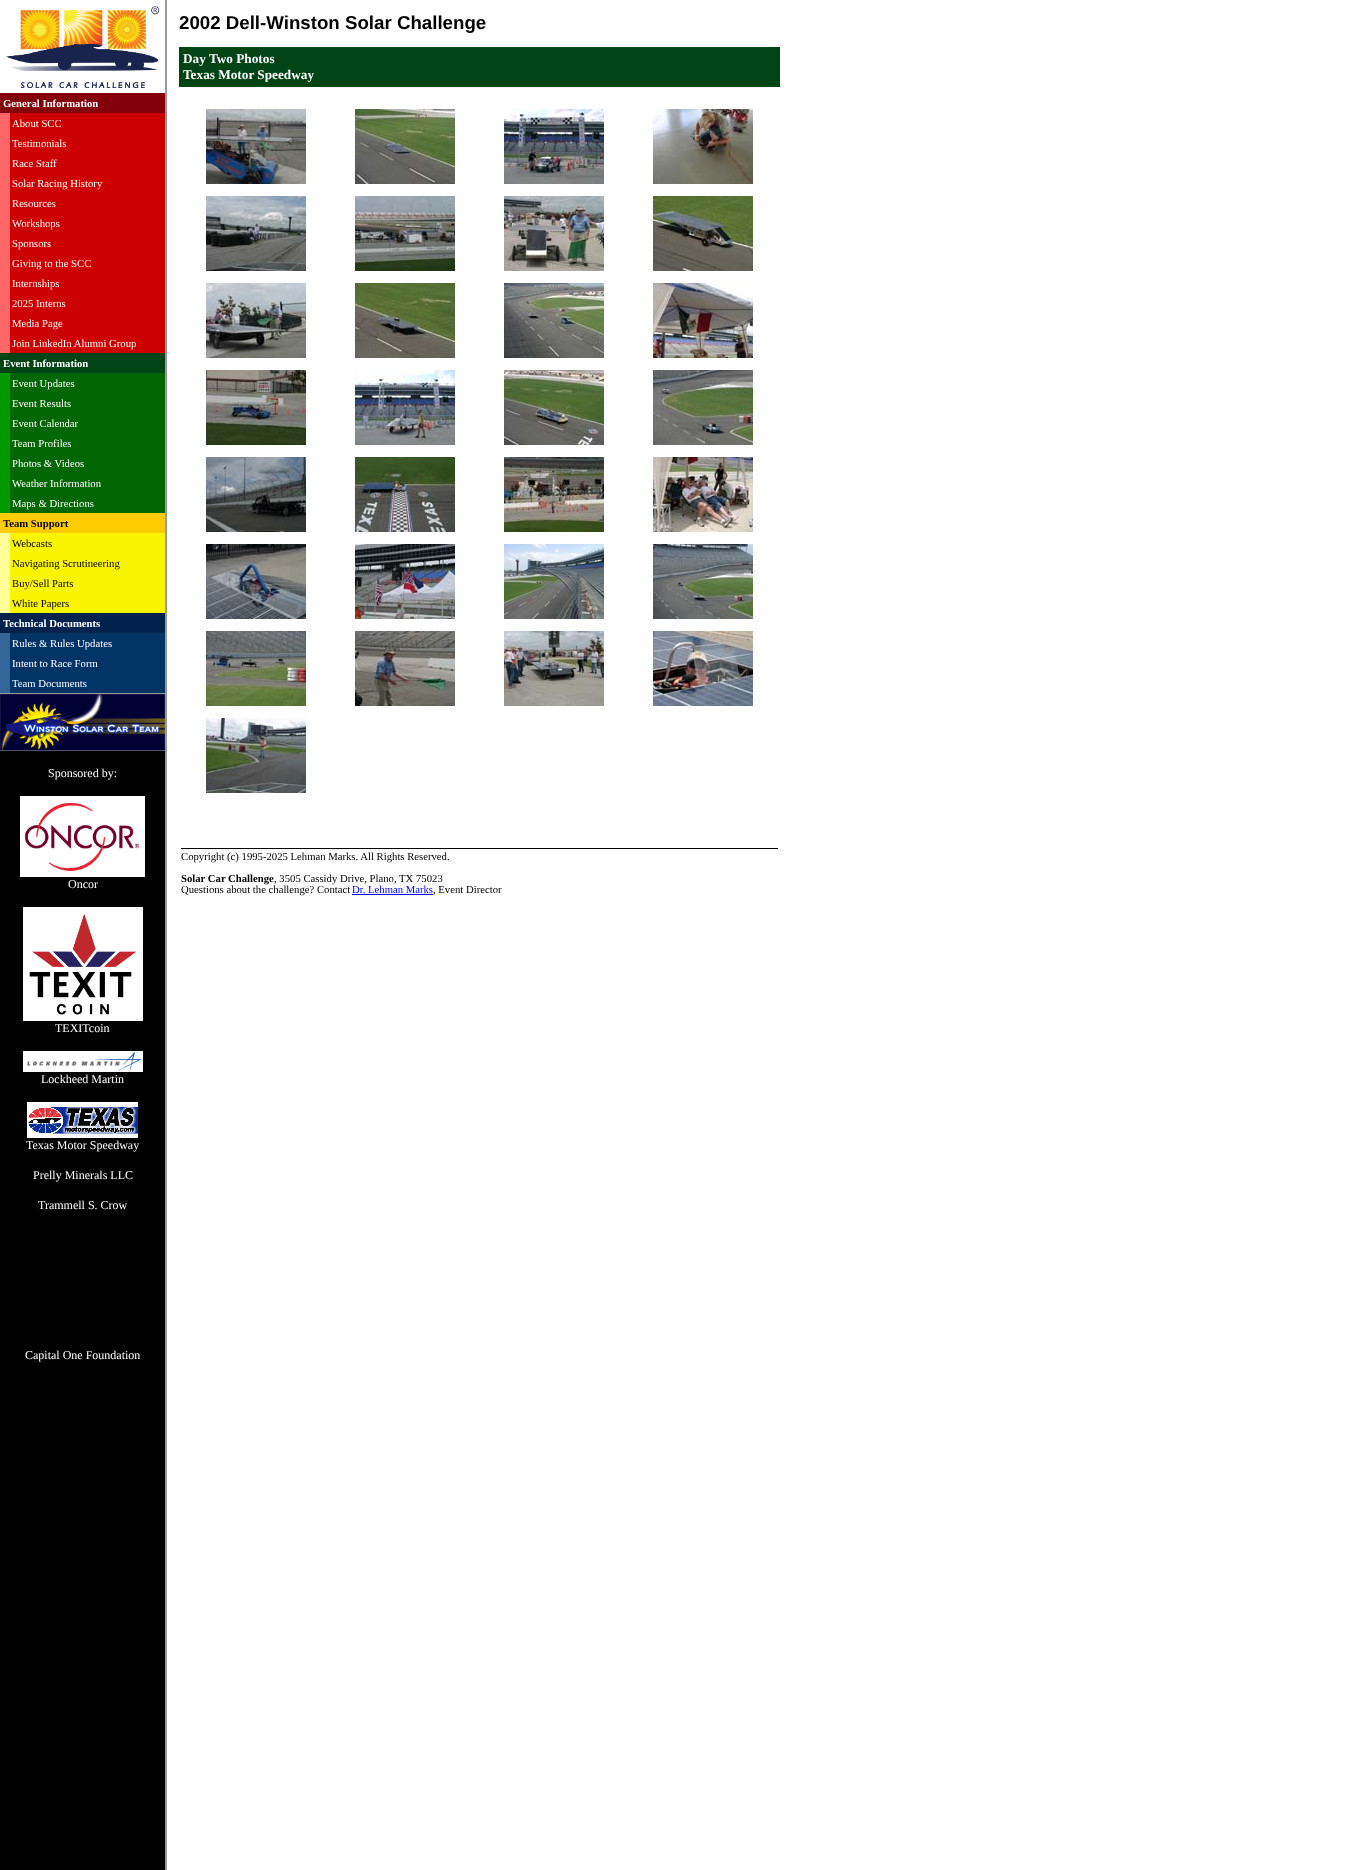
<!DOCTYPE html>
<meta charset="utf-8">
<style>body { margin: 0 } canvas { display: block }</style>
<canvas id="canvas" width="1346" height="1870"></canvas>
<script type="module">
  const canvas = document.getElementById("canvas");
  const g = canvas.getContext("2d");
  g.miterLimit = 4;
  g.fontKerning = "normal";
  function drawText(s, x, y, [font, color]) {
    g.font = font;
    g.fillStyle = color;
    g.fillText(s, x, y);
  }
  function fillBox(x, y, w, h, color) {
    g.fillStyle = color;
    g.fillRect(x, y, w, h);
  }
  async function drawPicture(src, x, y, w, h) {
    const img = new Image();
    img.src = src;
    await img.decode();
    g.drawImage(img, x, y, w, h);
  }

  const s1 = ["bold 10.7px Liberation Serif", "#FFFFFF"];
  const s2 = ["10.7px Liberation Serif", "#FFFFFF"];
  const s3 = ["bold 10.7px Liberation Serif", "#000000"];
  const s4 = ["10.7px Liberation Serif", "#000000"];
  const s5 = ["12px Liberation Serif", "#FFFFFF"];
  const s6 = ["bold 18.7px Liberation Sans", "#000000"];
  const s7 = ["bold 13.25px Liberation Serif", "#FFFFFF"];
  const s8 = ["10.7px Liberation Serif", "#0000EE"];

  fillBox(0, 0, 1346, 1870, "#FFFFFF");
  await drawPicture("pic1.png", 0, 0, 167, 1870);
  fillBox(0, 0, 165, 93, "#FFFFFF");
  await drawPicture("pic2.png", 6, 6, 154, 82);
  fillBox(0, 93, 165, 20, "#84000A");
  drawText("General Information", 3, 107, s1);
  fillBox(0, 113, 10, 240, "#FF6666");
  fillBox(10, 113, 155, 240, "#CC0000");
  drawText("About SCC", 12, 127, s2);
  drawText("Testimonials", 12, 147, s2);
  drawText("Race Staff", 12, 167, s2);
  drawText("Solar Racing History", 12, 187, s2);
  drawText("Resources", 12, 207, s2);
  drawText("Workshops", 12, 227, s2);
  drawText("Sponsors", 12, 247, s2);
  drawText("Giving to the SCC", 12, 267, s2);
  drawText("Internships", 12, 287, s2);
  drawText("2025 Interns", 12, 307, s2);
  drawText("Media Page", 12, 327, s2);
  drawText("Join LinkedIn Alumni Group", 12, 347, s2);
  fillBox(0, 353, 165, 20, "#004416");
  drawText("Event Information", 3, 367, s1);
  fillBox(0, 373, 10, 140, "#009900");
  fillBox(10, 373, 155, 140, "#006600");
  drawText("Event Updates", 12, 387, s2);
  drawText("Event Results", 12, 407, s2);
  drawText("Event Calendar", 12, 427, s2);
  drawText("Team Profiles", 12, 447, s2);
  drawText("Photos & Videos", 12, 467, s2);
  drawText("Weather Information", 12, 487, s2);
  drawText("Maps & Directions", 12, 507, s2);
  fillBox(0, 513, 165, 20, "#FFCC00");
  drawText("Team Support", 3, 527, s3);
  fillBox(0, 533, 10, 80, "#FFFF99");
  fillBox(10, 533, 155, 80, "#F9F400");
  drawText("Webcasts", 12, 547, s4);
  drawText("Navigating Scrutineering", 12, 567, s4);
  drawText("Buy/Sell Parts", 12, 587, s4);
  drawText("White Papers", 12, 607, s4);
  fillBox(0, 613, 165, 20, "#00224D");
  drawText("Technical Documents", 3, 627, s1);
  fillBox(0, 633, 10, 60, "#336699");
  fillBox(10, 633, 155, 60, "#003366");
  drawText("Rules & Rules Updates", 12, 647, s2);
  drawText("Intent to Race Form", 12, 667, s2);
  drawText("Team Documents", 12, 687, s2);
  fillBox(0, 693, 165, 1, "#999999");
  await drawPicture("pic3.png", 0, 694, 165, 57);
  drawText("Sponsored by:", 48, 777, s5);
  await drawPicture("pic4.png", 20, 796, 125, 81);
  drawText("Oncor", 68, 888, s5);
  await drawPicture("pic5.png", 23, 907, 120, 114);
  drawText("TEXITcoin", 55, 1032, s5);
  await drawPicture("pic6.png", 23, 1051, 120, 21);
  drawText("Lockheed Martin", 41, 1083, s5);
  await drawPicture("pic7.png", 27, 1102, 111, 36);
  drawText("Texas Motor Speedway", 26, 1149, s5);
  drawText("Prelly Minerals LLC", 33, 1179, s5);
  drawText("Trammell S. Crow", 38, 1209, s5);
  drawText("Capital One Foundation", 25, 1359, s5);
  drawText("2002 Dell-Winston Solar Challenge", 179, 29, s6);
  fillBox(179, 47, 601, 40, "#004416");
  drawText("Day Two Photos", 183, 63, s7);
  drawText("Texas Motor Speedway", 183, 79, s7);
  await drawPicture("pic8.png", 206, 109, 100, 75);
  await drawPicture("pic9.png", 355, 109, 100, 75);
  await drawPicture("pic10.png", 504, 109, 100, 75);
  await drawPicture("pic11.png", 653, 109, 100, 75);
  await drawPicture("pic12.png", 206, 196, 100, 75);
  await drawPicture("pic13.png", 355, 196, 100, 75);
  await drawPicture("pic14.png", 504, 196, 100, 75);
  await drawPicture("pic15.png", 653, 196, 100, 75);
  await drawPicture("pic16.png", 206, 283, 100, 75);
  await drawPicture("pic17.png", 355, 283, 100, 75);
  await drawPicture("pic18.png", 504, 283, 100, 75);
  await drawPicture("pic19.png", 653, 283, 100, 75);
  await drawPicture("pic20.png", 206, 370, 100, 75);
  await drawPicture("pic21.png", 355, 370, 100, 75);
  await drawPicture("pic22.png", 504, 370, 100, 75);
  await drawPicture("pic23.png", 653, 370, 100, 75);
  await drawPicture("pic24.png", 206, 457, 100, 75);
  await drawPicture("pic25.png", 355, 457, 100, 75);
  await drawPicture("pic26.png", 504, 457, 100, 75);
  await drawPicture("pic27.png", 653, 457, 100, 75);
  await drawPicture("pic28.png", 206, 544, 100, 75);
  await drawPicture("pic29.png", 355, 544, 100, 75);
  await drawPicture("pic30.png", 504, 544, 100, 75);
  await drawPicture("pic31.png", 653, 544, 100, 75);
  await drawPicture("pic32.png", 206, 631, 100, 75);
  await drawPicture("pic33.png", 355, 631, 100, 75);
  await drawPicture("pic34.png", 504, 631, 100, 75);
  await drawPicture("pic35.png", 653, 631, 100, 75);
  await drawPicture("pic36.png", 206, 718, 100, 75);
  fillBox(181, 848, 597, 1, "#000000");
  drawText("Copyright (c) 1995-2025 Lehman Marks. All Rights Reserved.", 181, 860, s4);
  drawText("Solar Car Challenge", 181, 882, s3);
  drawText(", 3505 Cassidy Drive, Plano, TX 75023", 274, 882, s4);
  drawText("Questions about the challenge? Contact", 181, 893, s4);
  drawText("Dr. Lehman Marks", 352, 893, s8);
  fillBox(352, 894, 81, 1, "#0000EE");
  drawText(", Event Director", 433, 893, s4);
</script>
